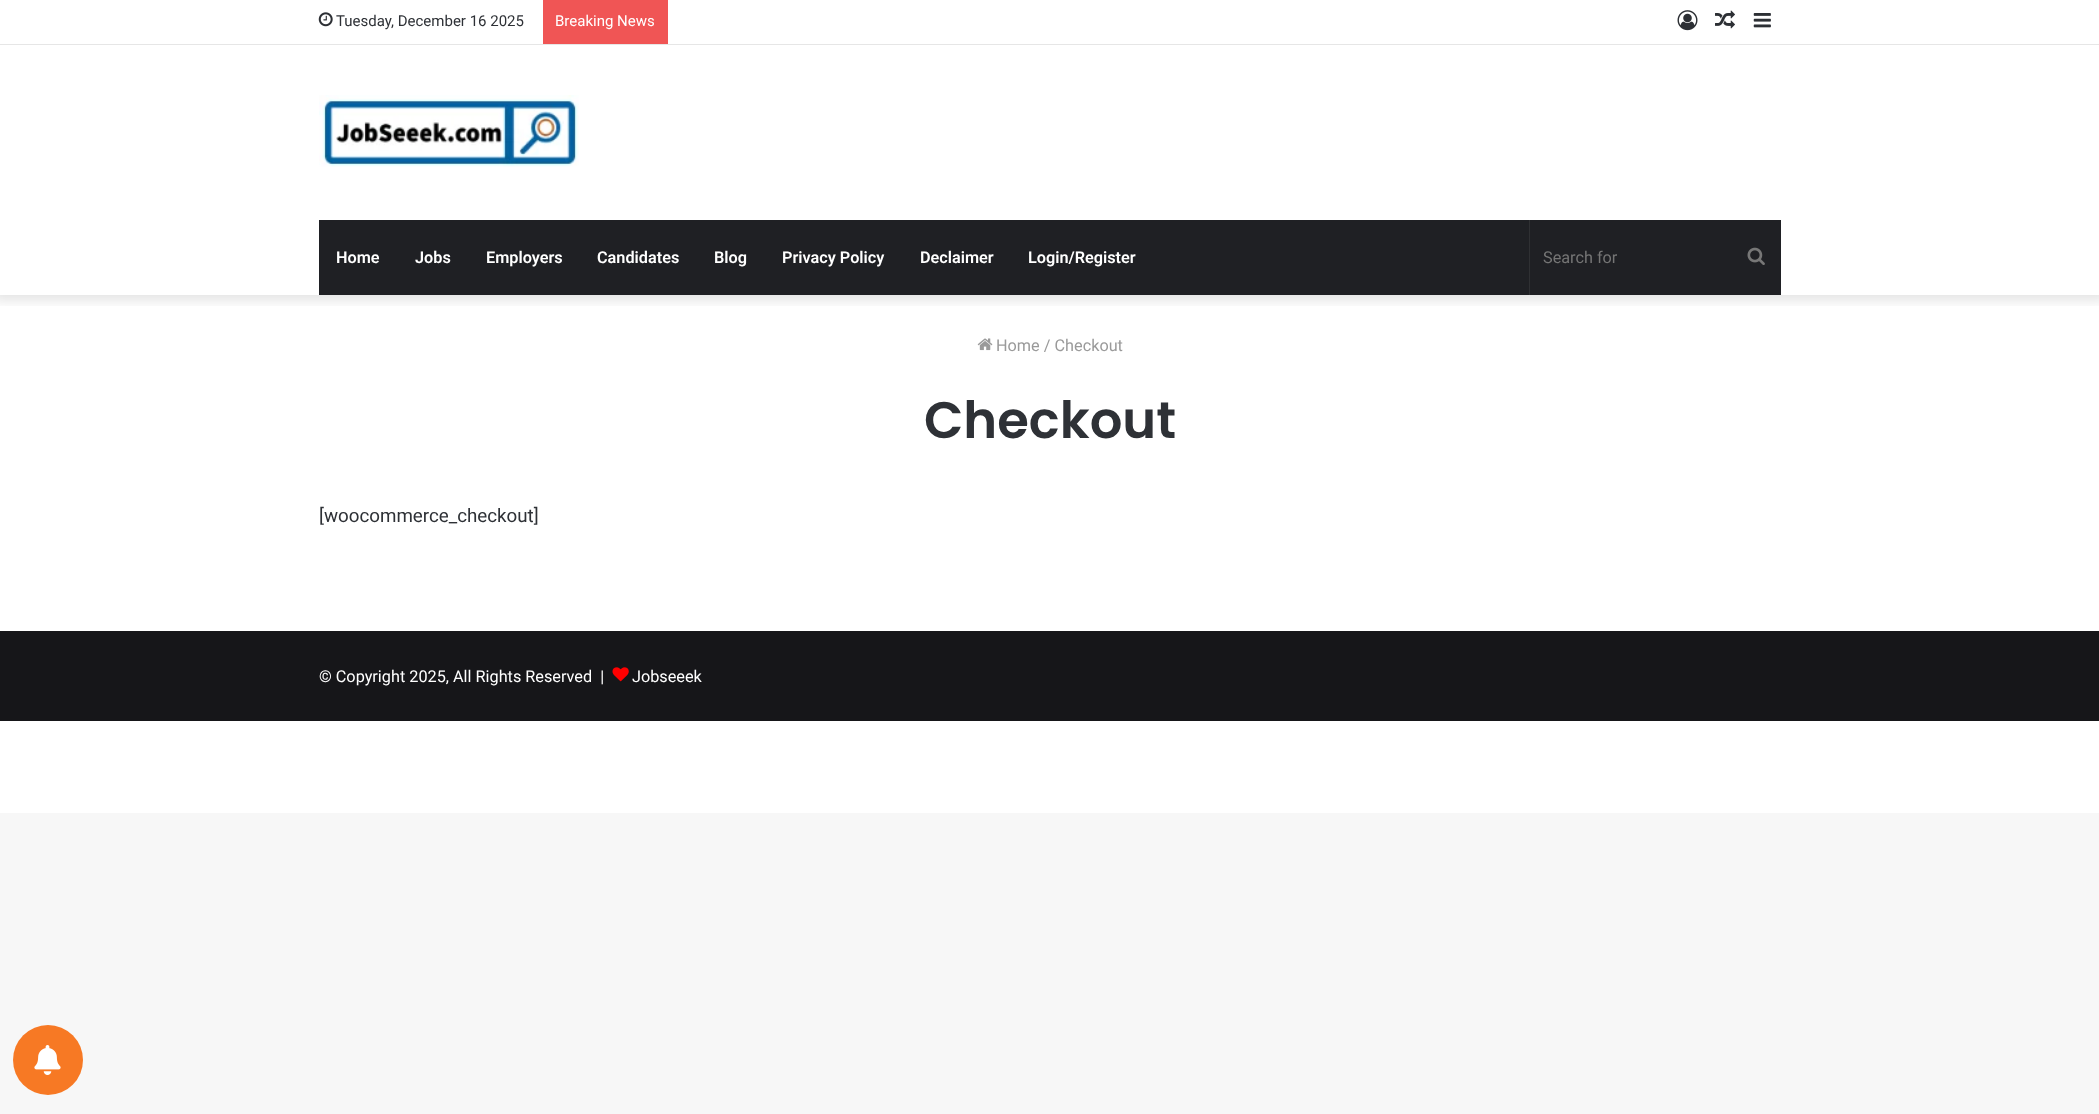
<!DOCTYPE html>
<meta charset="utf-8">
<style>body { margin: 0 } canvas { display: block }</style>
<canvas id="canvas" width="2099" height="1114"></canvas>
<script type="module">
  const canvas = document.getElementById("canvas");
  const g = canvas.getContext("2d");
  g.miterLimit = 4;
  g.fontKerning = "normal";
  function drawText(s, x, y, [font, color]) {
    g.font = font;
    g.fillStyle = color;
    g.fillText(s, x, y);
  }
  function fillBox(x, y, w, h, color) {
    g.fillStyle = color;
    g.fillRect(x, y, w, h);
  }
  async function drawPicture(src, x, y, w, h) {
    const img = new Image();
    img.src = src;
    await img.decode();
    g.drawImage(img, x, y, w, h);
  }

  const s1 = ["15px Roboto", "#2E3136"];
  const s2 = ["15px Roboto", "#FFFFFF"];
  const s3 = ["600 16.25px Roboto", "#FFFFFF"];
  const s4 = ["16.25px Roboto", "#757575"];
  const s5 = ["16.25px Roboto", "#9A9A9A"];
  const s6 = ["600 51.25px Poppins", "#2E3136"];
  const s7 = ["18.75px Roboto", "#2E3136"];
  const s8 = ["16.25px Roboto", "#FFFFFF"];

  fillBox(0, 0, 2099, 1114, "#F7F7F7");
  fillBox(0, 0, 2099, 813, "#FFFFFF");
  g.save();
  g.beginPath();
  g.rect(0, 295, 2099, 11);
  g.clip();
  g.fillStyle = "rgba(0, 0, 0, 0.1)";
  g.filter = "blur(6px)";
  g.beginPath();
  g.rect(-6, -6, 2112, 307);
  g.fill();
  g.filter = "none";
  g.restore();
  fillBox(0, 44, 2099, 1, "#E6E6E6");
  await drawPicture("pic1.png", 318, 12, 15, 15);
  drawText("Tuesday, December 16 2025", 336, 26, s1);
  fillBox(543, 0, 125, 44, "#F05555");
  drawText("Breaking News", 555, 26, s2);
  await drawPicture("pic2.png", 1677, 10, 21, 21);
  await drawPicture("pic3.png", 1715, 10, 20, 19);
  await drawPicture("pic4.png", 1753, 13, 18, 15);
  await drawPicture("pic5.png", 319, 95, 260, 72);
  fillBox(319, 220, 1462, 75, "#1F2024");
  drawText("Home", 336, 263, s3);
  drawText("Jobs", 415, 263, s3);
  drawText("Employers", 486, 263, s3);
  drawText("Candidates", 597, 263, s3);
  drawText("Blog", 714, 263, s3);
  drawText("Privacy Policy", 782, 263, s3);
  drawText("Declaimer", 920, 263, s3);
  drawText("Login/Register", 1028, 263, s3);
  fillBox(1529, 220, 1, 75, "#2F3033");
  drawText("Search for", 1543, 263, s4);
  await drawPicture("pic6.png", 1747, 247, 18, 18);
  await drawPicture("pic7.png", 977, 338, 16, 13);
  drawText("Home / Checkout", 996, 351, s5);
  drawText("Checkout", 924, 438, s6);
  drawText("[woocommerce_checkout]", 319, 522, s7);
  fillBox(0, 631, 2099, 90, "#161619");
  drawText("© Copyright 2025, All Rights Reserved  |", 319, 682, s8);
  await drawPicture("pic8.png", 612, 667, 17, 15);
  drawText("Jobseeek", 632, 682, s8);
  g.fillStyle = "#F77924";
  g.beginPath();
  g.arc(48, 1060, 35, 0, Math.PI * 2);
  g.fill();
  await drawPicture("pic9.png", 34, 1045, 27, 30);
</script>
